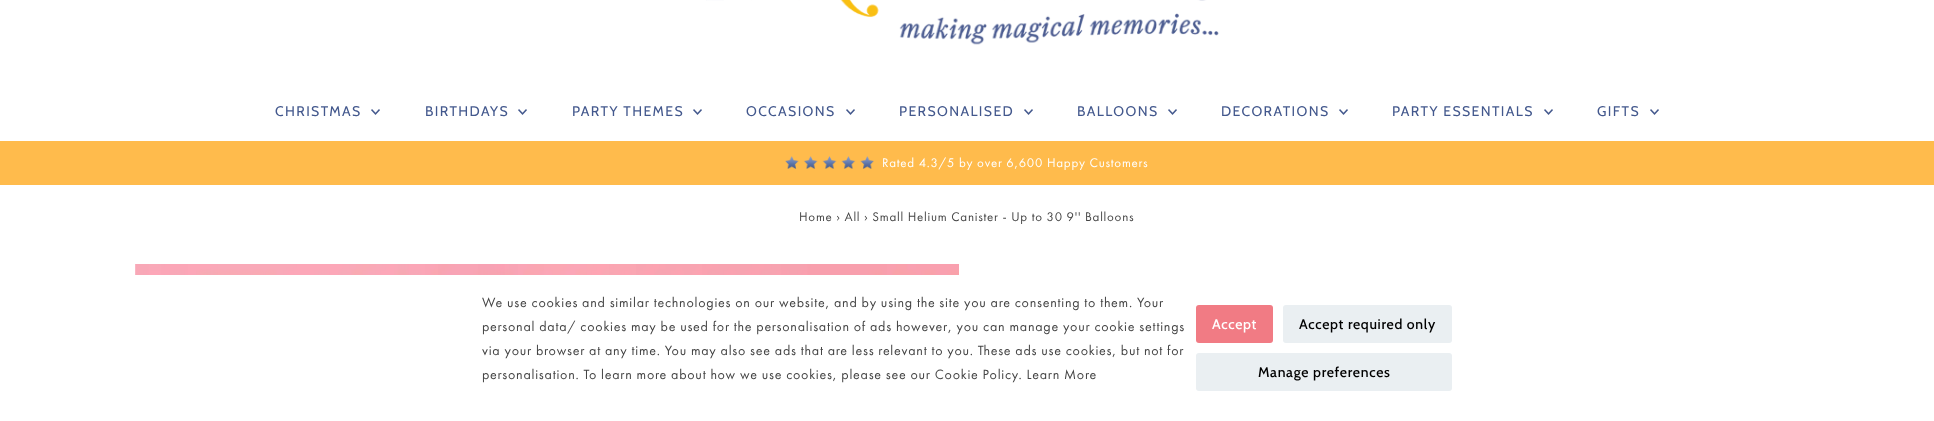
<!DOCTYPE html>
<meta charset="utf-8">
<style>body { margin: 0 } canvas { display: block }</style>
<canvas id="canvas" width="1934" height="421"></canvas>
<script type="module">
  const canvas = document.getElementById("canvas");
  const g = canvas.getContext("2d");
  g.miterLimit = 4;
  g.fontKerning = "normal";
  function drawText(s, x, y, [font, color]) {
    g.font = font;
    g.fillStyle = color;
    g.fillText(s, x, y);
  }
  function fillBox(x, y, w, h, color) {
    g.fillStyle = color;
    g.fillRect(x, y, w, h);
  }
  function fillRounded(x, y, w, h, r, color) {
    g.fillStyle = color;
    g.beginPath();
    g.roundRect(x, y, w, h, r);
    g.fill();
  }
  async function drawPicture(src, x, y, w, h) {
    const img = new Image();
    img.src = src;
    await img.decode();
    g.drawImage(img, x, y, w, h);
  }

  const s1 = ["14px Cabin", "#43588D"];
  const s2 = ["13px Futura PT", "#FFFFFF"];
  const s3 = ["13px Futura PT", "#444444"];
  const s4 = ["14px Futura PT", "#444444"];
  const s5 = ["500 14px Cabin", "#FFFFFF"];
  const s6 = ["500 14px Cabin", "#000000"];

  fillBox(0, 0, 1934, 421, "#FFFFFF");
  await drawPicture("pic1.png", 706, 0, 513, 45);
  g.letterSpacing = "1.4px";
  drawText("CHRISTMAS", 275, 116, s1);
  await drawPicture("pic2.png", 371, 109, 9, 6);
  drawText("BIRTHDAYS", 425, 116, s1);
  await drawPicture("pic2.png", 518, 109, 9, 6);
  drawText("PARTY THEMES", 572, 116, s1);
  await drawPicture("pic2.png", 693, 109, 9, 6);
  drawText("OCCASIONS", 746, 116, s1);
  await drawPicture("pic2.png", 846, 109, 9, 6);
  drawText("PERSONALISED", 899, 116, s1);
  await drawPicture("pic2.png", 1024, 109, 9, 6);
  drawText("BALLOONS", 1077, 116, s1);
  await drawPicture("pic2.png", 1168, 109, 9, 6);
  drawText("DECORATIONS", 1221, 116, s1);
  await drawPicture("pic2.png", 1339, 109, 9, 6);
  drawText("PARTY ESSENTIALS", 1392, 116, s1);
  await drawPicture("pic2.png", 1544, 109, 9, 6);
  drawText("GIFTS", 1597, 116, s1);
  await drawPicture("pic2.png", 1650, 109, 9, 6);
  fillBox(0, 141, 1934, 44, "#FFBB4C");
  await drawPicture("pic3.png", 785, 156, 89, 13);
  g.letterSpacing = "0.75px";
  drawText("Rated 4.3/5 by over 6,600 Happy Customers", 882, 167, s2);
  drawText("Home › All › Small Helium Canister - Up to 30 9'' Balloons", 799, 221, s3);
  await drawPicture("pic4.png", 135, 264, 824, 11);
  drawText("We use cookies and similar technologies on our website, and by using the site you are consenting to them. Your", 482, 307, s4);
  drawText("personal data/ cookies may be used for the personalisation of ads however, you can manage your cookie settings", 482, 331, s4);
  drawText("via your browser at any time. You may also see ads that are less relevant to you. These ads use cookies, but not for", 482, 355, s4);
  drawText("personalisation. To learn more about how we use cookies, please see our Cookie Policy. Learn More", 482, 379, s4);
  fillRounded(1196, 305, 77, 38, 3, "#F17B84");
  g.letterSpacing = "0.7px";
  drawText("Accept", 1212, 329, s5);
  fillRounded(1283, 305, 169, 38, 3, "#EAEFF2");
  drawText("Accept required only", 1299, 329, s6);
  fillRounded(1196, 353, 256, 38, 3, "#EAEFF2");
  drawText("Manage preferences", 1258, 377, s6);
</script>
